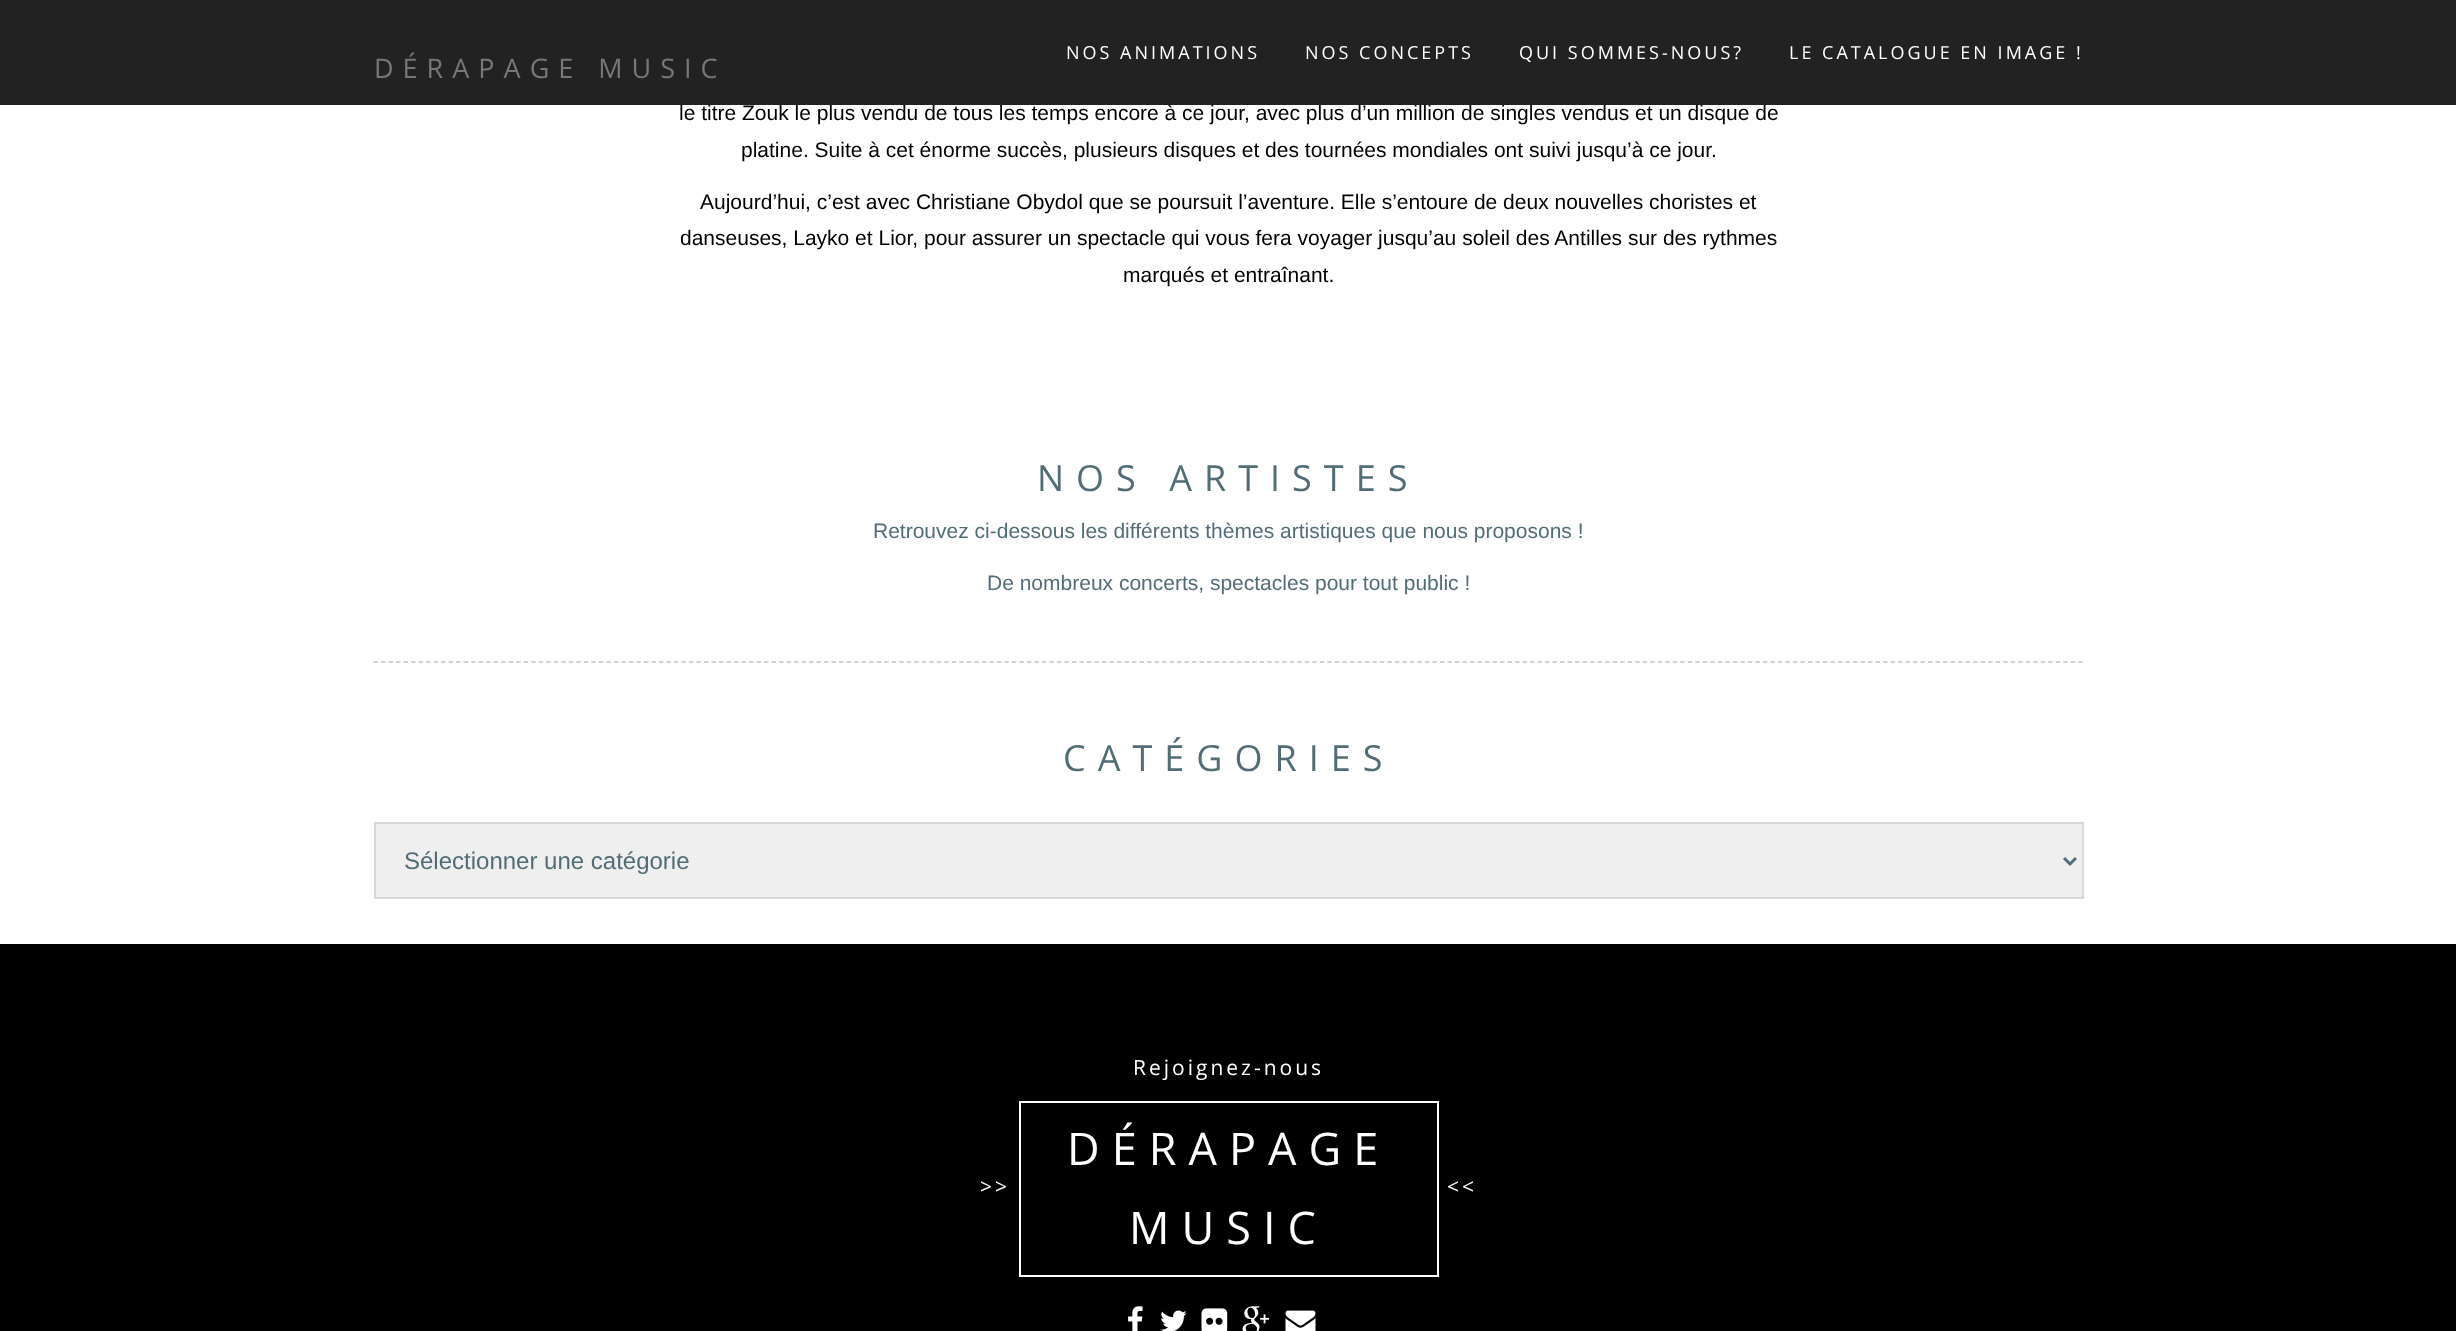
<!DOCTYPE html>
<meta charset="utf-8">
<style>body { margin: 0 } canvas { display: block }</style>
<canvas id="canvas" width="2456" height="1331"></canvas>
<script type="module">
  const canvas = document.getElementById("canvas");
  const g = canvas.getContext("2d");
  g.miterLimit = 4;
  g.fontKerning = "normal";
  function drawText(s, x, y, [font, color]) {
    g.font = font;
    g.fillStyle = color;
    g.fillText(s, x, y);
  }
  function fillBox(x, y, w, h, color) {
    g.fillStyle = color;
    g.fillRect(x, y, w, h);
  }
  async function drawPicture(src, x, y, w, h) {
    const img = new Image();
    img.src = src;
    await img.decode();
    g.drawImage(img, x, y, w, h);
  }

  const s1 = ["21px Liberation Sans", "#000000"];
  const s2 = ["27px Open Sans", "#777777"];
  const s3 = ["18px Open Sans", "#FFFFFF"];
  const s4 = ["36px Open Sans", "#536D76"];
  const s5 = ["21px Liberation Sans", "#536D76"];
  const s6 = ["24px Liberation Sans", "#536D76"];
  const s7 = ["21px Open Sans", "#FFFFFF"];
  const s8 = ["45px Open Sans", "#FFFFFF"];

  fillBox(0, 0, 2456, 1331, "#FFFFFF");
  drawText("le titre Zouk le plus vendu de tous les temps encore à ce jour, avec plus d’un million de singles vendus et un disque de", 679, 120, s1);
  fillBox(0, 0, 2456, 105, "#222222");
  g.letterSpacing = "9px";
  drawText("DÉRAPAGE MUSIC", 374, 78, s2);
  g.letterSpacing = "3px";
  drawText("NOS ANIMATIONS", 1066, 59, s3);
  drawText("NOS CONCEPTS", 1305, 59, s3);
  drawText("QUI SOMMES-NOUS?", 1519, 59, s3);
  drawText("LE CATALOGUE EN IMAGE !", 1789, 59, s3);
  g.letterSpacing = "0px";
  drawText("platine. Suite à cet énorme succès, plusieurs disques et des tournées mondiales ont suivi jusqu’à ce jour.", 741, 157, s1);
  drawText("Aujourd’hui, c’est avec Christiane Obydol que se poursuit l’aventure. Elle s’entoure de deux nouvelles choristes et", 700, 209, s1);
  drawText("danseuses, Layko et Lior, pour assurer un spectacle qui vous fera voyager jusqu’au soleil des Antilles sur des rythmes", 680, 245, s1);
  drawText("marqués et entraînant.", 1123, 282, s1);
  g.beginPath();
  g.moveTo(373.5, 662);
  g.lineTo(2083.5, 662);
  g.strokeStyle = "#C5C5C5";
  g.lineWidth = 1.5;
  g.setLineDash([4.5, 3.01]);
  g.stroke();
  g.letterSpacing = "12px";
  drawText("NOS ARTISTES", 1037, 491, s4);
  g.letterSpacing = "0px";
  drawText("Retrouvez ci-dessous les différents thèmes artistiques que nous proposons !", 873, 538, s5);
  drawText("De nombreux concerts, spectacles pour tout public !", 987, 590, s5);
  g.letterSpacing = "12px";
  drawText("CATÉGORIES", 1063, 771, s4);
  g.fillStyle = "#EFEFEF";
  g.beginPath();
  g.rect(375, 823, 1708, 75);
  g.fill();
  g.strokeStyle = "#D8D8D8";
  g.lineWidth = 2;
  g.setLineDash([]);
  g.stroke();
  g.beginPath();
  g.moveTo(2064, 858);
  g.lineTo(2070, 864);
  g.lineTo(2076, 858);
  g.strokeStyle = "#536D76";
  g.lineWidth = 3;
  g.stroke();
  g.letterSpacing = "0px";
  drawText("Sélectionner une catégorie", 404, 869, s6);
  fillBox(0, 944, 2456, 387, "#000000");
  g.letterSpacing = "3px";
  drawText("Rejoignez-nous", 1133, 1075, s7);
  drawText(">>", 980, 1194, s7);
  g.strokeStyle = "#FFFFFF";
  g.lineWidth = 2;
  g.strokeRect(1020, 1102, 418, 174);
  g.letterSpacing = "12px";
  drawText("DÉRAPAGE", 1067, 1165, s8);
  drawText("MUSIC", 1129, 1244, s8);
  g.letterSpacing = "3px";
  drawText("<<", 1447, 1194, s7);
  await drawPicture("pic1.png", 1128, 1306, 15, 25);
  await drawPicture("pic2.png", 1160, 1310, 27, 21);
  await drawPicture("pic3.png", 1201, 1308, 27, 23);
  await drawPicture("pic4.png", 1242, 1306, 27, 25);
  await drawPicture("pic5.png", 1285, 1310, 31, 21);
</script>
